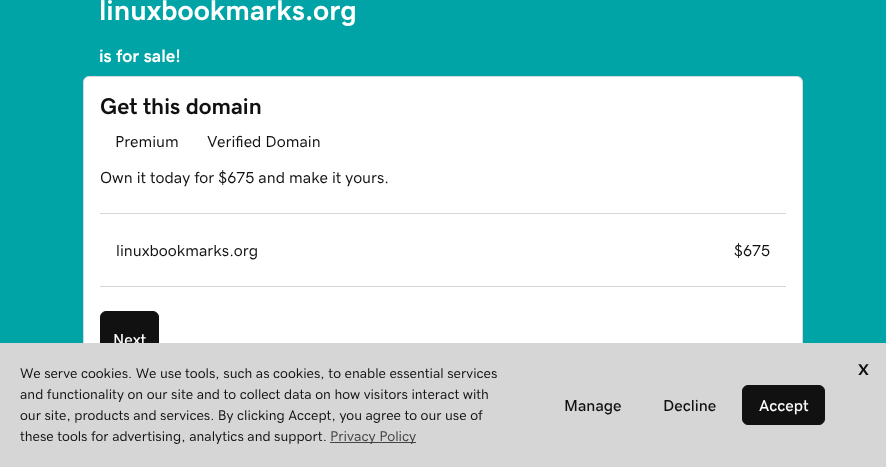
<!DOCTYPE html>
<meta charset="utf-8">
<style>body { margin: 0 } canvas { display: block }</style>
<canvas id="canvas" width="886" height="467"></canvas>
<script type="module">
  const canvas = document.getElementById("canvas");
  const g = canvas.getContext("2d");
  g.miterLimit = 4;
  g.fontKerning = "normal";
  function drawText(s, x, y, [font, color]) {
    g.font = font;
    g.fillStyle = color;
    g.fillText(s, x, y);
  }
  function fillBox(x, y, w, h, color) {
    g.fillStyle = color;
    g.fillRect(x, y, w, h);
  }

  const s1 = ["bold 28.75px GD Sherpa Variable", "#FFFFFF"];
  const s2 = ["bold 18px GD Sherpa Variable", "#FFFFFF"];
  const s3 = ["bold 22.75px GD Sherpa Variable", "#111111"];
  const s4 = ["16px GD Sherpa Variable", "#111111"];
  const s5 = ["500 16px GD Sherpa Variable", "#FFFFFF"];
  const s6 = ["14px GD Sherpa Variable", "#111111"];
  const s7 = ["14.25px GD Sherpa Variable", "#444444"];
  const s8 = ["500 16px GD Sherpa Variable", "#111111"];
  const s9 = ["500 22px GD Sherpa Variable", "#111111"];

  fillBox(0, 0, 886, 467, "#00A4A6");
  drawText("linuxbookmarks.org", 99, 20, s1);
  drawText("is for sale!", 99, 62, s2);
  g.beginPath();
  g.roundRect(83.5, 76.5, 719, 331, 5.5);
  g.fill();
  g.strokeStyle = "#D4DBE0";
  g.stroke();
  drawText("Get this domain", 100, 114, s3);
  drawText("Premium", 115, 147, s4);
  drawText("Verified Domain", 207, 147, s4);
  drawText("Own it today for $675 and make it yours.", 100, 183, s4);
  fillBox(100, 213, 686, 1, "#D6D6D6");
  drawText("linuxbookmarks.org", 116, 256, s4);
  drawText("$675", 734, 256, s4);
  fillBox(100, 286, 686, 1, "#D6D6D6");
  g.fillStyle = "#111111";
  g.beginPath();
  g.roundRect(100.5, 311.5, 58, 55, 5.5);
  g.fill();
  g.strokeStyle = "#111111";
  g.stroke();
  drawText("Next", 113, 345, s5);
  fillBox(0, 343, 886, 124, "#D6D6D6");
  drawText("We serve cookies. We use tools, such as cookies, to enable essential services", 20, 378, s6);
  drawText("and functionality on our site and to collect data on how visitors interact with", 20, 399, s6);
  drawText("our site, products and services. By clicking Accept, you agree to our use of", 20, 420, s6);
  drawText("these tools for advertising, analytics and support.", 20, 441, s6);
  fillBox(330, 442, 86, 1, "#444444");
  drawText("Privacy Policy", 330, 441, s7);
  drawText("Manage", 564, 411, s8);
  drawText("Decline", 663, 411, s8);
  g.beginPath();
  g.roundRect(742.5, 385.5, 82, 39, 5.5);
  g.fill();
  g.stroke();
  drawText("Accept", 759, 411, s5);
  drawText("x", 858, 375, s9);
</script>
